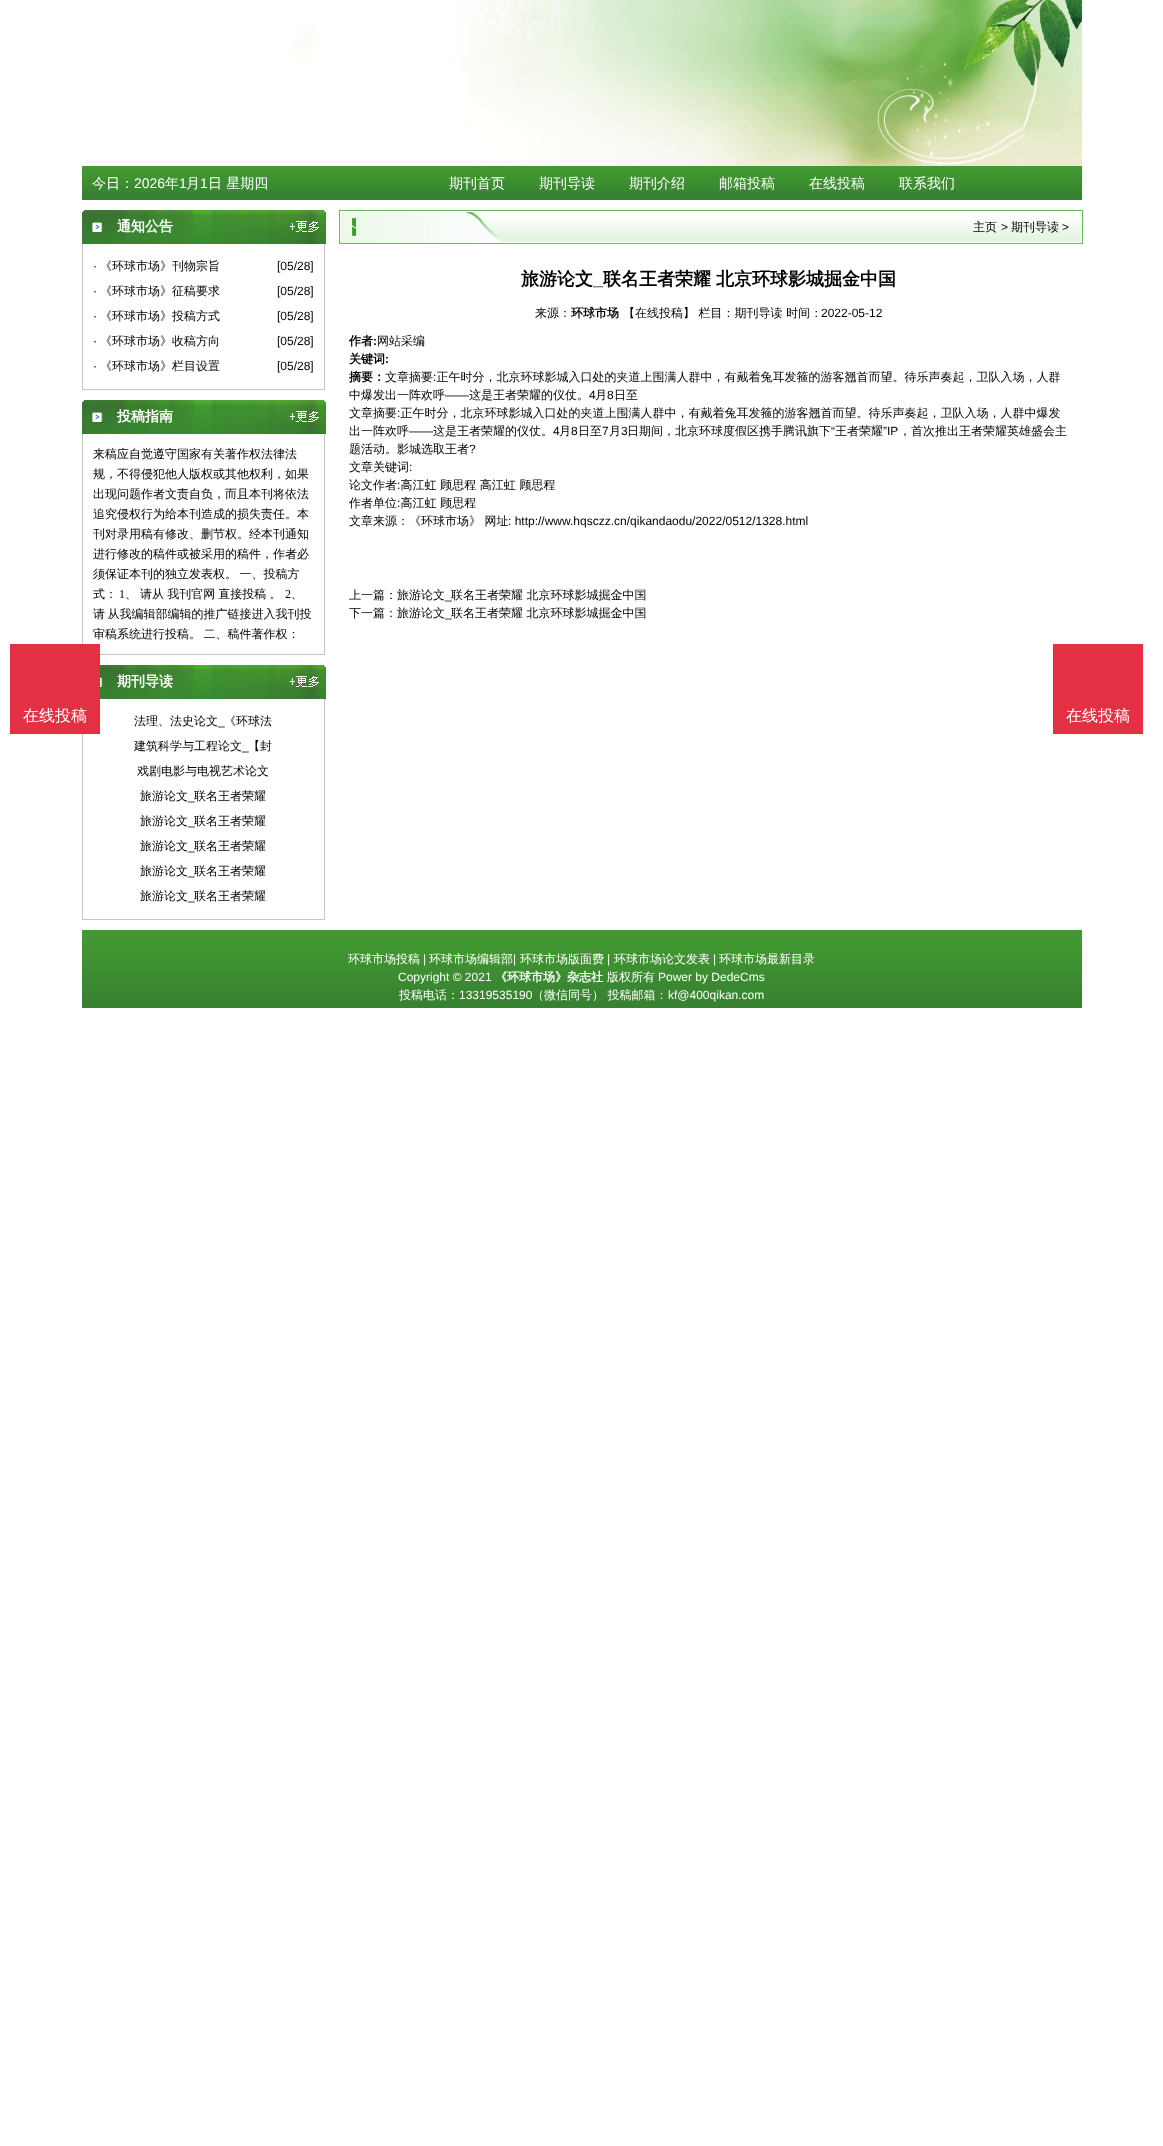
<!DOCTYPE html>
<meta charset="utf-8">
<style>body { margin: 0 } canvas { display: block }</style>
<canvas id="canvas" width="1163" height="2146"></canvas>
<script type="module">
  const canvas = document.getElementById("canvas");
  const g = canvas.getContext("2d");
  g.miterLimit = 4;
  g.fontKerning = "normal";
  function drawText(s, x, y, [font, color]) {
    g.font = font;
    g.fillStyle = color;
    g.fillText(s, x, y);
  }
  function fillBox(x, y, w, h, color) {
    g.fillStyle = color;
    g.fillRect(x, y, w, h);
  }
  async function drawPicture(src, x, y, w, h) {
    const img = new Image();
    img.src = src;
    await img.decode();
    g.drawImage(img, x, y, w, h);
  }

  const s1 = ["500 14px WenQuanYi Zen Hei", "#FFFFFF"];
  const s2 = ["14px Liberation Sans", "#FFFFFF"];
  const s3 = ["500 16px WenQuanYi Zen Hei", "#FFFFFF"];
  const s4 = ["bold 14px WenQuanYi Zen Hei", "#FFFFFF"];
  const s5 = ["12px Liberation Sans", "#000000"];
  const s6 = ["500 12px WenQuanYi Zen Hei", "#000000"];
  const s7 = ["12px Liberation Serif", "#000000"];
  const s8 = ["bold 18px WenQuanYi Zen Hei", "#000000"];
  const s9 = ["bold 18px Liberation Sans", "#000000"];
  const s10 = ["bold 12px WenQuanYi Zen Hei", "#000000"];
  const s11 = ["bold 12px Liberation Sans", "#000000"];
  const s12 = ["500 12px WenQuanYi Zen Hei", "#FFFFFF"];
  const s13 = ["12px Liberation Sans", "#FFFFFF"];
  const s14 = ["bold 12px WenQuanYi Zen Hei", "#FFFFFF"];

  fillBox(0, 0, 1163, 2146, "#FFFFFF");
  await drawPicture("pic1.png", 291, 0, 791, 166);
  await drawPicture("pic2.png", 82, 166, 1000, 34);
  drawText("今日：", 92, 188, s1);
  drawText("2026", 134, 188, s2);
  drawText("年", 165, 188, s1);
  drawText("1", 179, 188, s2);
  drawText("月", 186, 188, s1);
  drawText("1", 200, 188, s2);
  drawText("日 星期四", 208, 188, s1);
  drawText("期刊首页", 449, 188, s1);
  drawText("期刊导读", 539, 188, s1);
  drawText("期刊介绍", 629, 188, s1);
  drawText("邮箱投稿", 719, 188, s1);
  drawText("在线投稿", 809, 188, s1);
  drawText("联系我们", 899, 188, s1);
  fillBox(10, 644, 90, 90, "#E33043");
  drawText("在线投稿", 23, 721, s3);
  await drawPicture("pic3.png", 82, 210, 244, 34);
  drawText("通知公告", 117, 231, s4);
  fillBox(324, 244, 1, 146, "#C5C5C5");
  fillBox(82, 389, 243, 1, "#C5C5C5");
  fillBox(82, 244, 1, 146, "#C5C5C5");
  drawText("·", 93, 270, s5);
  drawText("《环球市场》刊物宗旨", 100, 270, s6);
  drawText("[05/28]", 277, 270, s5);
  drawText("·", 93, 295, s5);
  drawText("《环球市场》征稿要求", 100, 295, s6);
  drawText("[05/28]", 277, 295, s5);
  drawText("·", 93, 320, s5);
  drawText("《环球市场》投稿方式", 100, 320, s6);
  drawText("[05/28]", 277, 320, s5);
  drawText("·", 93, 345, s5);
  drawText("《环球市场》收稿方向", 100, 345, s6);
  drawText("[05/28]", 277, 345, s5);
  drawText("·", 93, 370, s5);
  drawText("《环球市场》栏目设置", 100, 370, s6);
  drawText("[05/28]", 277, 370, s5);
  await drawPicture("pic3.png", 82, 400, 244, 34);
  drawText("投稿指南", 117, 421, s4);
  fillBox(324, 434, 1, 221, "#C5C5C5");
  fillBox(100, 654, 225, 1, "#C5C5C5");
  fillBox(82, 434, 1, 210, "#C5C5C5");
  drawText("来稿应自觉遵守国家有关著作权法律法", 93, 458, s6);
  drawText("规，不得侵犯他人版权或其他权利，如果", 93, 478, s6);
  drawText("出现问题作者文责自负，而且本刊将依法", 93, 498, s6);
  drawText("追究侵权行为给本刊造成的损失责任。本", 93, 518, s6);
  drawText("刊对录用稿有修改、删节权。经本刊通知", 93, 538, s6);
  drawText("进行修改的稿件或被采用的稿件，作者必", 93, 558, s6);
  g.wordSpacing = "-1px";
  drawText("须保证本刊的独立发表权。 一、投稿方", 93, 578, s6);
  g.wordSpacing = "0px";
  drawText("式：", 93, 598, s6);
  drawText("1", 119, 598, s7);
  g.wordSpacing = "-0.5px";
  drawText("、 请从 我刊官网 直接投稿 。", 125, 598, s6);
  g.wordSpacing = "0px";
  drawText("2", 285, 598, s7);
  drawText("、", 291, 598, s6);
  g.wordSpacing = "-1px";
  drawText("请 从我编辑部编辑的推广链接进入我刊投", 93, 618, s6);
  drawText("审稿系统进行投稿。 二、稿件著作权：", 93, 638, s6);
  await drawPicture("pic4.png", 100, 665, 226, 34);
  g.wordSpacing = "0px";
  drawText("期刊导读", 117, 686, s4);
  fillBox(324, 699, 1, 221, "#C5C5C5");
  fillBox(82, 919, 243, 1, "#C5C5C5");
  fillBox(82, 734, 1, 186, "#C5C5C5");
  drawText("法理、法史论文", 134, 725, s6);
  drawText("_", 218, 725, s5);
  drawText("《环球法", 224, 725, s6);
  drawText("建筑科学与工程论文", 134, 750, s6);
  drawText("_", 242, 750, s5);
  drawText("【封", 248, 750, s6);
  drawText("戏剧电影与电视艺术论文", 137, 775, s6);
  drawText("旅游论文", 140, 800, s6);
  drawText("_", 188, 800, s5);
  drawText("联名王者荣耀", 194, 800, s6);
  drawText("旅游论文", 140, 825, s6);
  drawText("_", 188, 825, s5);
  drawText("联名王者荣耀", 194, 825, s6);
  drawText("旅游论文", 140, 850, s6);
  drawText("_", 188, 850, s5);
  drawText("联名王者荣耀", 194, 850, s6);
  drawText("旅游论文", 140, 875, s6);
  drawText("_", 188, 875, s5);
  drawText("联名王者荣耀", 194, 875, s6);
  drawText("旅游论文", 140, 900, s6);
  drawText("_", 188, 900, s5);
  drawText("联名王者荣耀", 194, 900, s6);
  await drawPicture("pic5.png", 339, 210, 744, 34);
  drawText("主页", 973, 231, s6);
  drawText(">", 1001, 231, s5);
  drawText("期刊导读", 1011, 231, s6);
  drawText(">", 1062, 231, s5);
  drawText("旅游论文", 521, 285, s8);
  drawText("_", 593, 285, s9);
  drawText("联名王者荣耀", 603, 285, s8);
  drawText("北京环球影城掘金中国", 716, 285, s8);
  drawText("来源：", 535, 317, s6);
  drawText("环球市场", 571, 317, s10);
  drawText("【在线投稿】 栏目：期刊导读 时间：", 623, 317, s6);
  drawText("2022-05-12", 821, 317, s5);
  drawText("作者", 349, 345, s10);
  drawText(":", 373, 345, s11);
  drawText("网站采编", 377, 345, s6);
  drawText("关键词", 349, 363, s10);
  drawText(":", 385, 363, s11);
  drawText("摘要：", 349, 381, s10);
  drawText("文章摘要 正午时分，北京环球影城入口处的夹道上围满人群中，有戴着兔耳发箍的游客翘首而望。待乐声奏起，卫队入场，人群", 385, 381, s6);
  drawText(":", 433, 381, s5);
  drawText("中爆发出一阵欢呼", 349, 399, s6);
  drawText("——", 445, 399, s5);
  drawText("这是王者荣耀的仪仗。", 469, 399, s6);
  drawText("4", 589, 399, s5);
  drawText("月", 595, 399, s6);
  drawText("8", 607, 399, s5);
  drawText("日至", 614, 399, s6);
  drawText("文章摘要 正午时分，北京环球影城入口处的夹道上围满人群中，有戴着兔耳发箍的游客翘首而望。待乐声奏起，卫队入场，人群中爆发", 349, 417, s6);
  drawText(":", 397, 417, s5);
  drawText("出一阵欢呼", 349, 435, s6);
  drawText("——", 409, 435, s5);
  drawText("这是王者荣耀的仪仗。", 433, 435, s6);
  drawText("4", 553, 435, s5);
  drawText("月", 559, 435, s6);
  drawText("8", 571, 435, s5);
  drawText("日至", 578, 435, s6);
  drawText("7", 602, 435, s5);
  drawText("月", 609, 435, s6);
  drawText("3", 621, 435, s5);
  drawText("日期间，北京环球度假区携手腾讯旗下", 627, 435, s6);
  drawText("“", 831, 435, s5);
  drawText("王者荣耀", 835, 435, s6);
  drawText("”IP", 883, 435, s5);
  drawText("，首次推出王者荣耀英雄盛会主", 899, 435, s6);
  drawText("题活动。影城选取王者", 349, 453, s6);
  drawText("?", 469, 453, s5);
  drawText("文章关键词", 349, 471, s6);
  drawText(":", 409, 471, s5);
  drawText("论文作者 高江虹 顾思程 高江虹 顾思程", 349, 489, s6);
  drawText(":", 397, 489, s5);
  drawText("作者单位 高江虹 顾思程", 349, 507, s6);
  drawText(":", 397, 507, s5);
  drawText("文章来源：《环球市场》 网址", 349, 525, s6);
  drawText(": http://www.hqsczz.cn/qikandaodu/2022/0512/1328.html", 508, 525, s5);
  drawText("上一篇：旅游论文", 349, 599, s6);
  drawText("_", 445, 599, s5);
  drawText("联名王者荣耀 北京环球影城掘金中国", 451, 599, s6);
  drawText("下一篇：旅游论文", 349, 617, s6);
  drawText("_", 445, 617, s5);
  drawText("联名王者荣耀 北京环球影城掘金中国", 451, 617, s6);
  fillBox(1053, 644, 90, 90, "#E33043");
  drawText("在线投稿", 1066, 721, s3);
  await drawPicture("pic6.png", 82, 930, 1000, 78);
  drawText("环球市场投稿", 348, 963, s12);
  drawText("|", 423, 963, s13);
  drawText("环球市场编辑部", 429, 963, s12);
  drawText("|", 513, 963, s13);
  drawText("环球市场版面费", 520, 963, s12);
  drawText("|", 607, 963, s13);
  drawText("环球市场论文发表", 614, 963, s12);
  drawText("|", 713, 963, s13);
  drawText("环球市场最新目录", 719, 963, s12);
  drawText("Copyright © 2021", 398, 981, s13);
  drawText("《环球市场》杂志社", 495, 981, s14);
  drawText("版权所有", 607, 981, s12);
  drawText("Power by DedeCms", 658, 981, s13);
  drawText("投稿电话：", 399, 999, s12);
  drawText("13319535190", 459, 999, s13);
  drawText("（微信同号） 投稿邮箱：", 532, 999, s12);
  drawText("kf@400qikan.com", 668, 999, s13);
</script>
